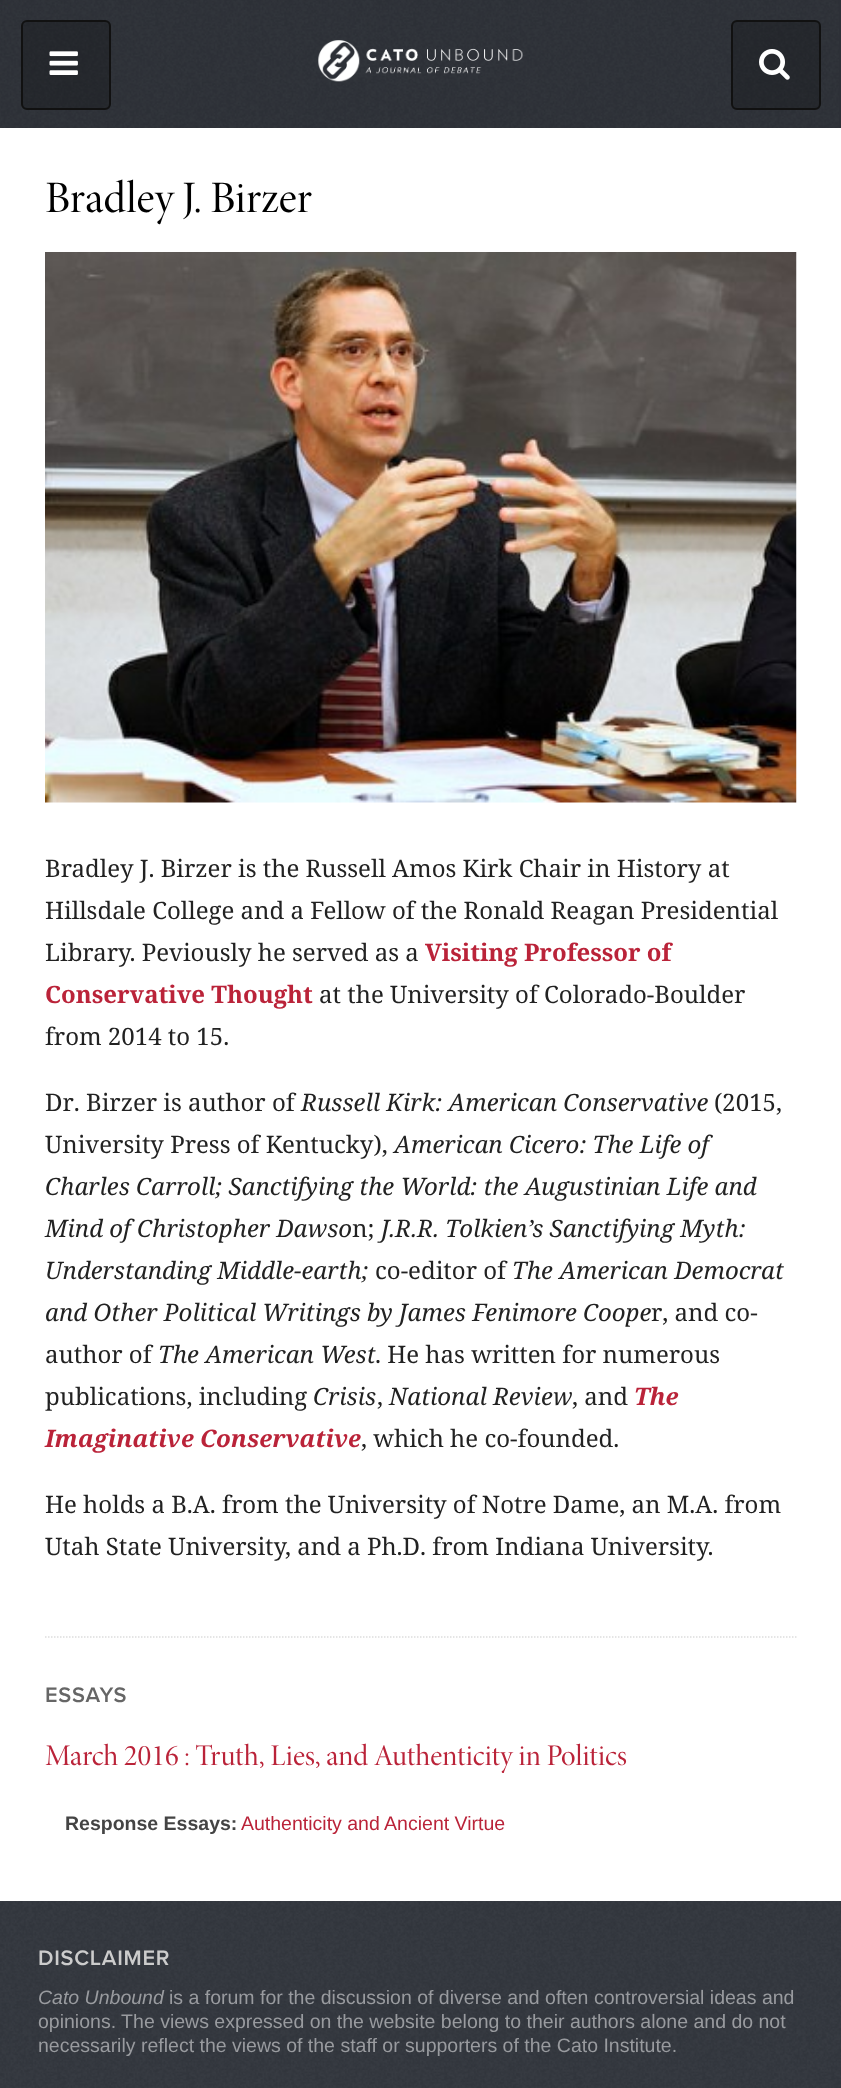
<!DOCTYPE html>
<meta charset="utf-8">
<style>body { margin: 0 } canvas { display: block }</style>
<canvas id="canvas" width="841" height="2088"></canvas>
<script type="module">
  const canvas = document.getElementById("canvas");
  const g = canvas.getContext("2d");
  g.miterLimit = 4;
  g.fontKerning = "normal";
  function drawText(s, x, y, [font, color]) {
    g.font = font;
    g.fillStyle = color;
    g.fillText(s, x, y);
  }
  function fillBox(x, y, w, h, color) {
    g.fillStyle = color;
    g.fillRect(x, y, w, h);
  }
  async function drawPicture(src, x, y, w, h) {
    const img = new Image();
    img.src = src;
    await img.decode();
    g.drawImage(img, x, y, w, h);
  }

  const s1 = ["45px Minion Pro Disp", "#000000"];
  const s2 = ["24px Noto Serif", "#222222"];
  const s3 = ["bold 24px Noto Serif", "#BA2339"];
  const s4 = ["italic 24px Noto Serif", "#222222"];
  const s5 = ["italic bold 24px Noto Serif", "#BA2339"];
  const s6 = ["600 21.75px Proxima Nova", "#666666"];
  const s7 = ["30px Minion Pro Disp", "#BA2339"];
  const s8 = ["bold 19.5px Liberation Sans", "#444444"];
  const s9 = ["19.5px Liberation Sans", "#BA2339"];
  const s10 = ["600 21.75px Proxima Nova", "#CCCCCC"];
  const s11 = ["italic 19.5px Liberation Sans", "#999B9F"];
  const s12 = ["19.5px Liberation Sans", "#999B9F"];

  fillBox(0, 0, 841, 2088, "#FFFFFF");
  await drawPicture("pic1.png", 0, 1901, 841, 187);
  fillBox(839, 0, 2, 128, "#2D3037");
  await drawPicture("pic2.png", 0, 0, 839, 128);
  g.fillStyle = "rgba(0, 0, 0, 0.2)";
  g.beginPath();
  g.roundRect(22, 21, 88, 88, 5);
  g.fill();
  g.strokeStyle = "#111111";
  g.lineWidth = 2;
  g.stroke();
  await drawPicture("pic3.png", 49, 51, 29, 24);
  await drawPicture("pic4.png", 318, 40, 205, 42);
  g.beginPath();
  g.roundRect(732, 21, 88, 88, 5);
  g.fill();
  g.stroke();
  await drawPicture("pic5.png", 759, 49, 31, 31);
  drawText("Bradley J. Birzer", 45, 212, s1);
  await drawPicture("pic6.png", 45, 252, 752, 551);
  drawText("Bradley J. Birzer is the Russell Amos Kirk Chair in History at", 45, 877, s2);
  drawText("Hillsdale College and a Fellow of the Ronald Reagan Presidential", 45, 919, s2);
  drawText("Library. Peviously he served as a", 45, 961, s2);
  drawText("Visiting Professor of", 425, 961, s3);
  drawText("Conservative Thought", 45, 1003, s3);
  drawText("at the University of Colorado-Boulder", 319, 1003, s2);
  drawText("from 2014 to 15.", 45, 1045, s2);
  drawText("Dr. Birzer is author of", 45, 1111, s2);
  drawText("Russell Kirk: American Conservative", 301, 1111, s4);
  drawText("(2015,", 714, 1111, s2);
  drawText("University Press of Kentucky),", 45, 1153, s2);
  drawText("American Cicero: The Life of", 394, 1153, s4);
  drawText("Charles Carroll; Sanctifying the World: the Augustinian Life and", 45, 1195, s4);
  drawText("Mind of Christopher Dawso", 45, 1237, s4);
  drawText("n;", 352, 1237, s2);
  drawText("J.R.R. Tolkien’s Sanctifying Myth:", 381, 1237, s4);
  drawText("Understanding Middle-earth;", 45, 1279, s4);
  drawText("co-editor of", 375, 1279, s2);
  drawText("The American Democrat", 512, 1279, s4);
  drawText("and Other Political Writings by James Fenimore Coope", 45, 1321, s4);
  drawText("r, and co-", 651, 1321, s2);
  drawText("author of", 45, 1363, s2);
  drawText("The American West", 158, 1363, s4);
  drawText(". He has written for numerous", 375, 1363, s2);
  drawText("publications, including", 45, 1405, s2);
  drawText("Crisis", 313, 1405, s4);
  drawText(",", 377, 1405, s2);
  drawText("National Review", 389, 1405, s4);
  drawText(", and", 572, 1405, s2);
  drawText("The", 634, 1405, s5);
  drawText("Imaginative Conservative", 45, 1447, s5);
  drawText(", which he co-founded.", 361, 1447, s2);
  drawText("He holds a B.A. from the University of Notre Dame, an M.A. from", 45, 1513, s2);
  drawText("Utah State University, and a Ph.D. from Indiana University.", 45, 1555, s2);
  g.beginPath();
  g.moveTo(45, 1637);
  g.lineTo(796.5, 1637);
  g.strokeStyle = "#DDDDDD";
  g.lineWidth = 1.5;
  g.setLineDash([1.5, 1.5]);
  g.stroke();
  g.letterSpacing = "0.75px";
  drawText("ESSAYS", 45, 1702, s6);
  g.letterSpacing = "0px";
  drawText("March 2016 : Truth, Lies, and Authenticity in Politics", 45, 1765, s7);
  drawText("Response Essays:", 65, 1830, s8);
  drawText("Authenticity and Ancient Virtue", 241, 1830, s9);
  g.letterSpacing = "0.75px";
  drawText("DISCLAIMER", 38, 1965, s10);
  g.letterSpacing = "0px";
  drawText("Cato Unbound", 38, 2004, s11);
  drawText("is a forum for the discussion of diverse and often controversial ideas and", 169, 2004, s12);
  drawText("opinions. The views expressed on the website belong to their authors alone and do not", 38, 2028, s12);
  drawText("necessarily reflect the views of the staff or supporters of the Cato Institute.", 38, 2052, s12);
</script>
